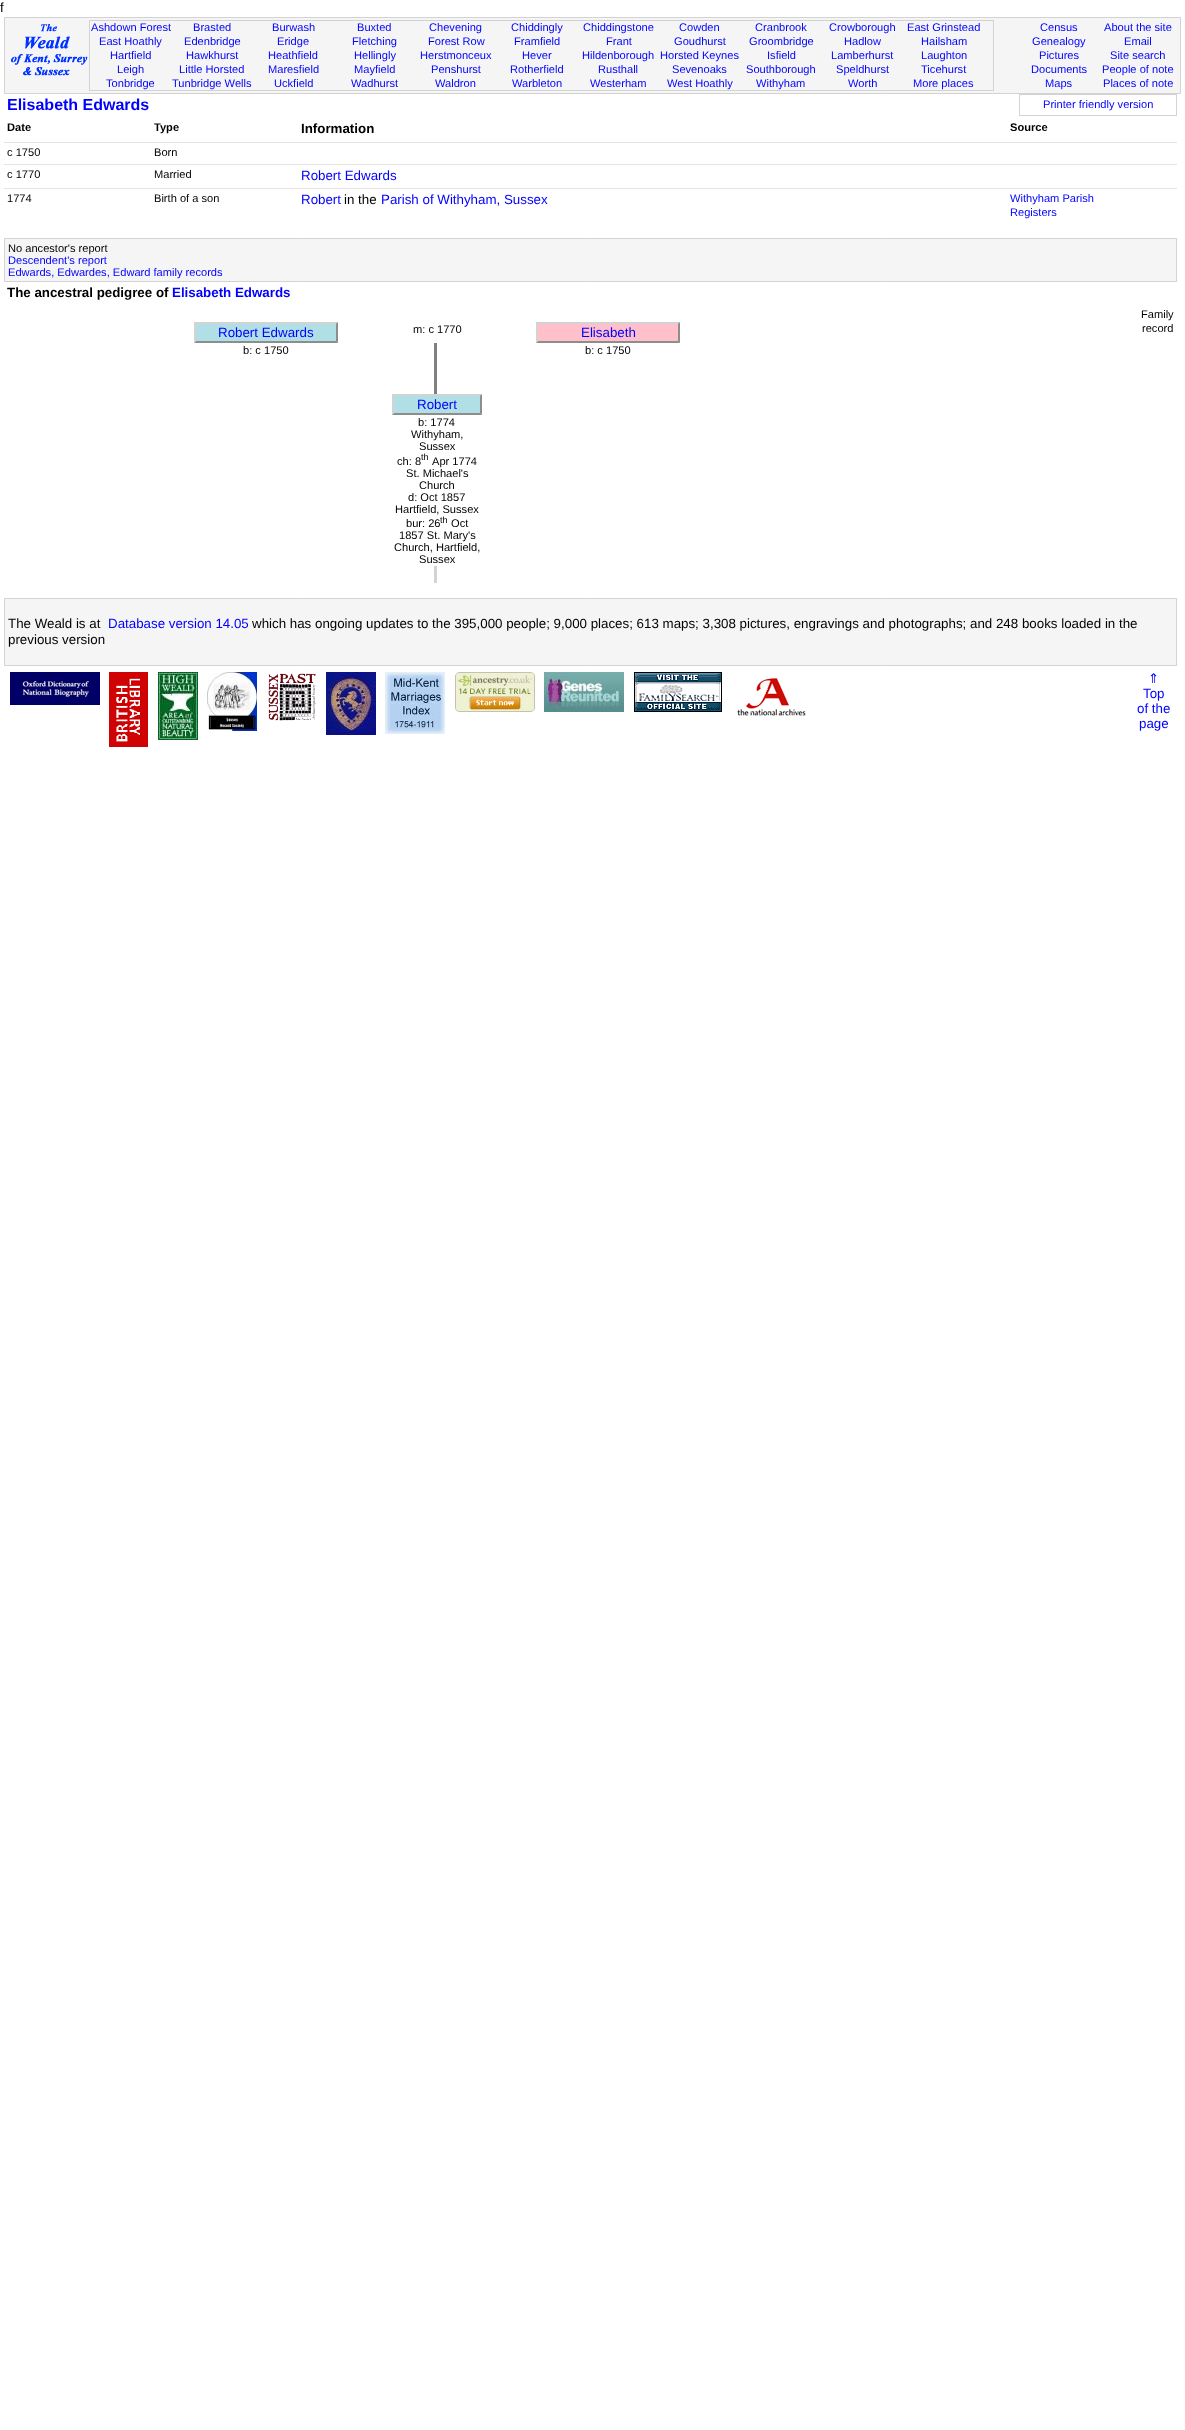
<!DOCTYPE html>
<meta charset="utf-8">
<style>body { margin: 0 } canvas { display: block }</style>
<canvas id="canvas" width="1185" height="2430"></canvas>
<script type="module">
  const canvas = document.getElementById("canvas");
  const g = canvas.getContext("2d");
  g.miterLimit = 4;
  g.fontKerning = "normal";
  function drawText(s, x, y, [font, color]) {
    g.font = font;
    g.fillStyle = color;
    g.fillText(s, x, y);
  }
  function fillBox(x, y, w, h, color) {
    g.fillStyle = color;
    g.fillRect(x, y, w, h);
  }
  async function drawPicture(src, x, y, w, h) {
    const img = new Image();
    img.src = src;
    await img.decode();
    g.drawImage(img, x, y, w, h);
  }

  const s1 = ["13.33px Liberation Sans", "#000000"];
  const s2 = ["11.1px Liberation Sans", "#0000FF"];
  const s3 = ["bold 16px Liberation Sans", "#0000FF"];
  const s4 = ["bold 11.1px Liberation Sans", "#000000"];
  const s5 = ["bold 13.33px Liberation Sans", "#000000"];
  const s6 = ["11.1px Liberation Sans", "#000000"];
  const s7 = ["13.33px Liberation Sans", "#0000FF"];
  const s8 = ["bold 13.33px Liberation Sans", "#0000FF"];
  const s9 = ["9px Liberation Sans", "#000000"];
  const s10 = ["13.33px DejaVu Sans", "#0000FF"];

  fillBox(0, 0, 1185, 2430, "#FFFFFF");
  drawText("f", 0, 12, s1);
  g.fillStyle = "#F5F5F5";
  g.beginPath();
  g.rect(4.5, 17.5, 1176, 76);
  g.fill();
  g.strokeStyle = "#D3D3D3";
  g.stroke();
  await drawPicture("pic1.png", 11, 24, 77, 52);
  g.strokeRect(89.5, 20.5, 904, 70);
  drawText("Ashdown Forest", 91, 31, s2);
  drawText("East Hoathly", 99, 45, s2);
  drawText("Hartfield", 110, 59, s2);
  drawText("Leigh", 117, 73, s2);
  drawText("Tonbridge", 106, 87, s2);
  drawText("Brasted", 193, 31, s2);
  drawText("Edenbridge", 184, 45, s2);
  drawText("Hawkhurst", 186, 59, s2);
  drawText("Little Horsted", 179, 73, s2);
  drawText("Tunbridge Wells", 172, 87, s2);
  drawText("Burwash", 272, 31, s2);
  drawText("Eridge", 277, 45, s2);
  drawText("Heathfield", 268, 59, s2);
  drawText("Maresfield", 268, 73, s2);
  drawText("Uckfield", 274, 87, s2);
  drawText("Buxted", 357, 31, s2);
  drawText("Fletching", 352, 45, s2);
  drawText("Hellingly", 354, 59, s2);
  drawText("Mayfield", 354, 73, s2);
  drawText("Wadhurst", 351, 87, s2);
  drawText("Chevening", 429, 31, s2);
  drawText("Forest Row", 428, 45, s2);
  drawText("Herstmonceux", 420, 59, s2);
  drawText("Penshurst", 431, 73, s2);
  drawText("Waldron", 435, 87, s2);
  drawText("Chiddingly", 511, 31, s2);
  drawText("Framfield", 514, 45, s2);
  drawText("Hever", 522, 59, s2);
  drawText("Rotherfield", 510, 73, s2);
  drawText("Warbleton", 512, 87, s2);
  drawText("Chiddingstone", 583, 31, s2);
  drawText("Frant", 606, 45, s2);
  drawText("Hildenborough", 582, 59, s2);
  drawText("Rusthall", 598, 73, s2);
  drawText("Westerham", 590, 87, s2);
  drawText("Cowden", 679, 31, s2);
  drawText("Goudhurst", 674, 45, s2);
  drawText("Horsted Keynes", 660, 59, s2);
  drawText("Sevenoaks", 672, 73, s2);
  drawText("West Hoathly", 667, 87, s2);
  drawText("Cranbrook", 755, 31, s2);
  drawText("Groombridge", 749, 45, s2);
  drawText("Isfield", 767, 59, s2);
  drawText("Southborough", 746, 73, s2);
  drawText("Withyham", 756, 87, s2);
  drawText("Crowborough", 829, 31, s2);
  drawText("Hadlow", 844, 45, s2);
  drawText("Lamberhurst", 831, 59, s2);
  drawText("Speldhurst", 836, 73, s2);
  drawText("Worth", 848, 87, s2);
  drawText("East Grinstead", 907, 31, s2);
  drawText("Hailsham", 921, 45, s2);
  drawText("Laughton", 921, 59, s2);
  drawText("Ticehurst", 921, 73, s2);
  drawText("More places", 913, 87, s2);
  drawText("Census", 1040, 31, s2);
  drawText("Genealogy", 1032, 45, s2);
  drawText("Pictures", 1039, 59, s2);
  drawText("Documents", 1031, 73, s2);
  drawText("Maps", 1045, 87, s2);
  drawText("About the site", 1104, 31, s2);
  drawText("Email", 1124, 45, s2);
  drawText("Site search", 1110, 59, s2);
  drawText("People of note", 1102, 73, s2);
  drawText("Places of note", 1103, 87, s2);
  drawText("Elisabeth Edwards", 7, 110, s3);
  g.strokeRect(1019.5, 94.5, 157, 21);
  drawText("Printer friendly version", 1043, 108, s2);
  drawText("Date", 7, 131, s4);
  drawText("Type", 154, 131, s4);
  drawText("Information", 301, 133, s5);
  drawText("Source", 1010, 131, s4);
  fillBox(4, 142, 1173, 1, "#E4E4E4");
  drawText("c 1750", 7, 156, s6);
  drawText("Born", 154, 156, s6);
  fillBox(4, 164, 1173, 1, "#E4E4E4");
  drawText("c 1770", 7, 178, s6);
  drawText("Married", 154, 178, s6);
  drawText("Robert Edwards", 301, 180, s7);
  fillBox(4, 188, 1173, 1, "#E4E4E4");
  drawText("1774", 7, 202, s6);
  drawText("Birth of a son", 154, 202, s6);
  drawText("Robert", 301, 204, s7);
  drawText("in the", 344, 204, s1);
  drawText("Parish of Withyham, Sussex", 381, 204, s7);
  drawText("Withyham Parish", 1010, 202, s2);
  drawText("Registers", 1010, 216, s2);
  g.fillStyle = "#F5F5F5";
  g.beginPath();
  g.rect(4.5, 238.5, 1172, 43);
  g.fill();
  g.stroke();
  drawText("No ancestor's report", 8, 252, s6);
  drawText("Descendent's report", 8, 264, s2);
  drawText("Edwards, Edwardes, Edward family records", 8, 276, s2);
  drawText("The ancestral pedigree of", 7, 297, s5);
  drawText("Elisabeth Edwards", 172, 297, s8);
  drawText("Family", 1141, 318, s6);
  drawText("record", 1142, 332, s6);
  fillBox(194, 322, 144, 21, "#B0E0E6");
  g.fillStyle = "#D3D3D3";
  g.beginPath();
  g.moveTo(194, 322);
  g.lineTo(338, 322);
  g.lineTo(336, 324);
  g.lineTo(196, 324);
  g.closePath();
  g.fill();
  g.fillStyle = "#8D8D8D";
  g.beginPath();
  g.moveTo(338, 322);
  g.lineTo(338, 343);
  g.lineTo(336, 341);
  g.lineTo(336, 324);
  g.closePath();
  g.fill();
  g.beginPath();
  g.moveTo(338, 343);
  g.lineTo(194, 343);
  g.lineTo(196, 341);
  g.lineTo(336, 341);
  g.closePath();
  g.fill();
  g.fillStyle = "#D3D3D3";
  g.beginPath();
  g.moveTo(194, 343);
  g.lineTo(194, 322);
  g.lineTo(196, 324);
  g.lineTo(196, 341);
  g.closePath();
  g.fill();
  drawText("Robert Edwards", 218, 337, s7);
  drawText("m: c 1770", 413, 333, s6);
  fillBox(536, 322, 144, 21, "#FFC0CB");
  g.fillStyle = "#D3D3D3";
  g.beginPath();
  g.moveTo(536, 322);
  g.lineTo(680, 322);
  g.lineTo(678, 324);
  g.lineTo(538, 324);
  g.closePath();
  g.fill();
  g.fillStyle = "#8D8D8D";
  g.beginPath();
  g.moveTo(680, 322);
  g.lineTo(680, 343);
  g.lineTo(678, 341);
  g.lineTo(678, 324);
  g.closePath();
  g.fill();
  g.beginPath();
  g.moveTo(680, 343);
  g.lineTo(536, 343);
  g.lineTo(538, 341);
  g.lineTo(678, 341);
  g.closePath();
  g.fill();
  g.fillStyle = "#D3D3D3";
  g.beginPath();
  g.moveTo(536, 343);
  g.lineTo(536, 322);
  g.lineTo(538, 324);
  g.lineTo(538, 341);
  g.closePath();
  g.fill();
  drawText("Elisabeth", 581, 337, s7);
  drawText("b: c 1750", 243, 354, s6);
  fillBox(434, 343, 3, 51, "#808080");
  drawText("b: c 1750", 585, 354, s6);
  fillBox(392, 394, 90, 21, "#B0E0E6");
  g.fillStyle = "#D3D3D3";
  g.beginPath();
  g.moveTo(392, 394);
  g.lineTo(482, 394);
  g.lineTo(480, 396);
  g.lineTo(394, 396);
  g.closePath();
  g.fill();
  g.fillStyle = "#8D8D8D";
  g.beginPath();
  g.moveTo(482, 394);
  g.lineTo(482, 415);
  g.lineTo(480, 413);
  g.lineTo(480, 396);
  g.closePath();
  g.fill();
  g.beginPath();
  g.moveTo(482, 415);
  g.lineTo(392, 415);
  g.lineTo(394, 413);
  g.lineTo(480, 413);
  g.closePath();
  g.fill();
  g.fillStyle = "#D3D3D3";
  g.beginPath();
  g.moveTo(392, 415);
  g.lineTo(392, 394);
  g.lineTo(394, 396);
  g.lineTo(394, 413);
  g.closePath();
  g.fill();
  drawText("Robert", 417, 409, s7);
  drawText("b: 1774", 418, 426, s6);
  drawText("Withyham,", 411, 438, s6);
  drawText("Sussex", 419, 450, s6);
  drawText("ch: 8", 397, 465, s6);
  drawText("th", 421, 460, s9);
  drawText("Apr 1774", 432, 465, s6);
  drawText("St. Michael's", 406, 477, s6);
  drawText("Church", 419, 489, s6);
  drawText("d: Oct 1857", 408, 501, s6);
  drawText("Hartfield, Sussex", 395, 513, s6);
  drawText("bur: 26", 406, 527, s6);
  drawText("th", 440, 523, s9);
  drawText("Oct", 451, 527, s6);
  drawText("1857 St. Mary's", 399, 539, s6);
  drawText("Church, Hartfield,", 394, 551, s6);
  drawText("Sussex", 419, 563, s6);
  fillBox(434, 566, 3, 17, "#D3D3D3");
  g.fillStyle = "#F5F5F5";
  g.beginPath();
  g.rect(4.5, 598.5, 1172, 67);
  g.fill();
  g.stroke();
  drawText("The Weald is at", 8, 628, s1);
  drawText("Database version 14.05", 108, 628, s7);
  drawText("which has ongoing updates to the 395,000 people; 9,000 places; 613 maps; 3,308 pictures, engravings and photographs; and 248 books loaded in the", 252, 628, s1);
  drawText("previous version", 8, 644, s1);
  await drawPicture("pic2.png", 10, 672, 90, 33);
  await drawPicture("pic3.png", 109, 672, 39, 75);
  await drawPicture("pic4.png", 158, 672, 40, 68);
  await drawPicture("pic5.png", 207, 672, 50, 59);
  await drawPicture("pic6.png", 268, 673, 48, 48);
  await drawPicture("pic7.png", 326, 672, 50, 63);
  await drawPicture("pic8.png", 385, 672, 60, 62);
  await drawPicture("pic9.png", 455, 672, 80, 40);
  await drawPicture("pic10.png", 544, 672, 80, 40);
  await drawPicture("pic11.png", 634, 672, 88, 40);
  await drawPicture("pic12.png", 737, 678, 69, 38);
  drawText("⇑", 1148, 683, s10);
  drawText("Top", 1143, 698, s7);
  drawText("of the", 1137, 713, s7);
  drawText("page", 1139, 728, s7);
</script>
